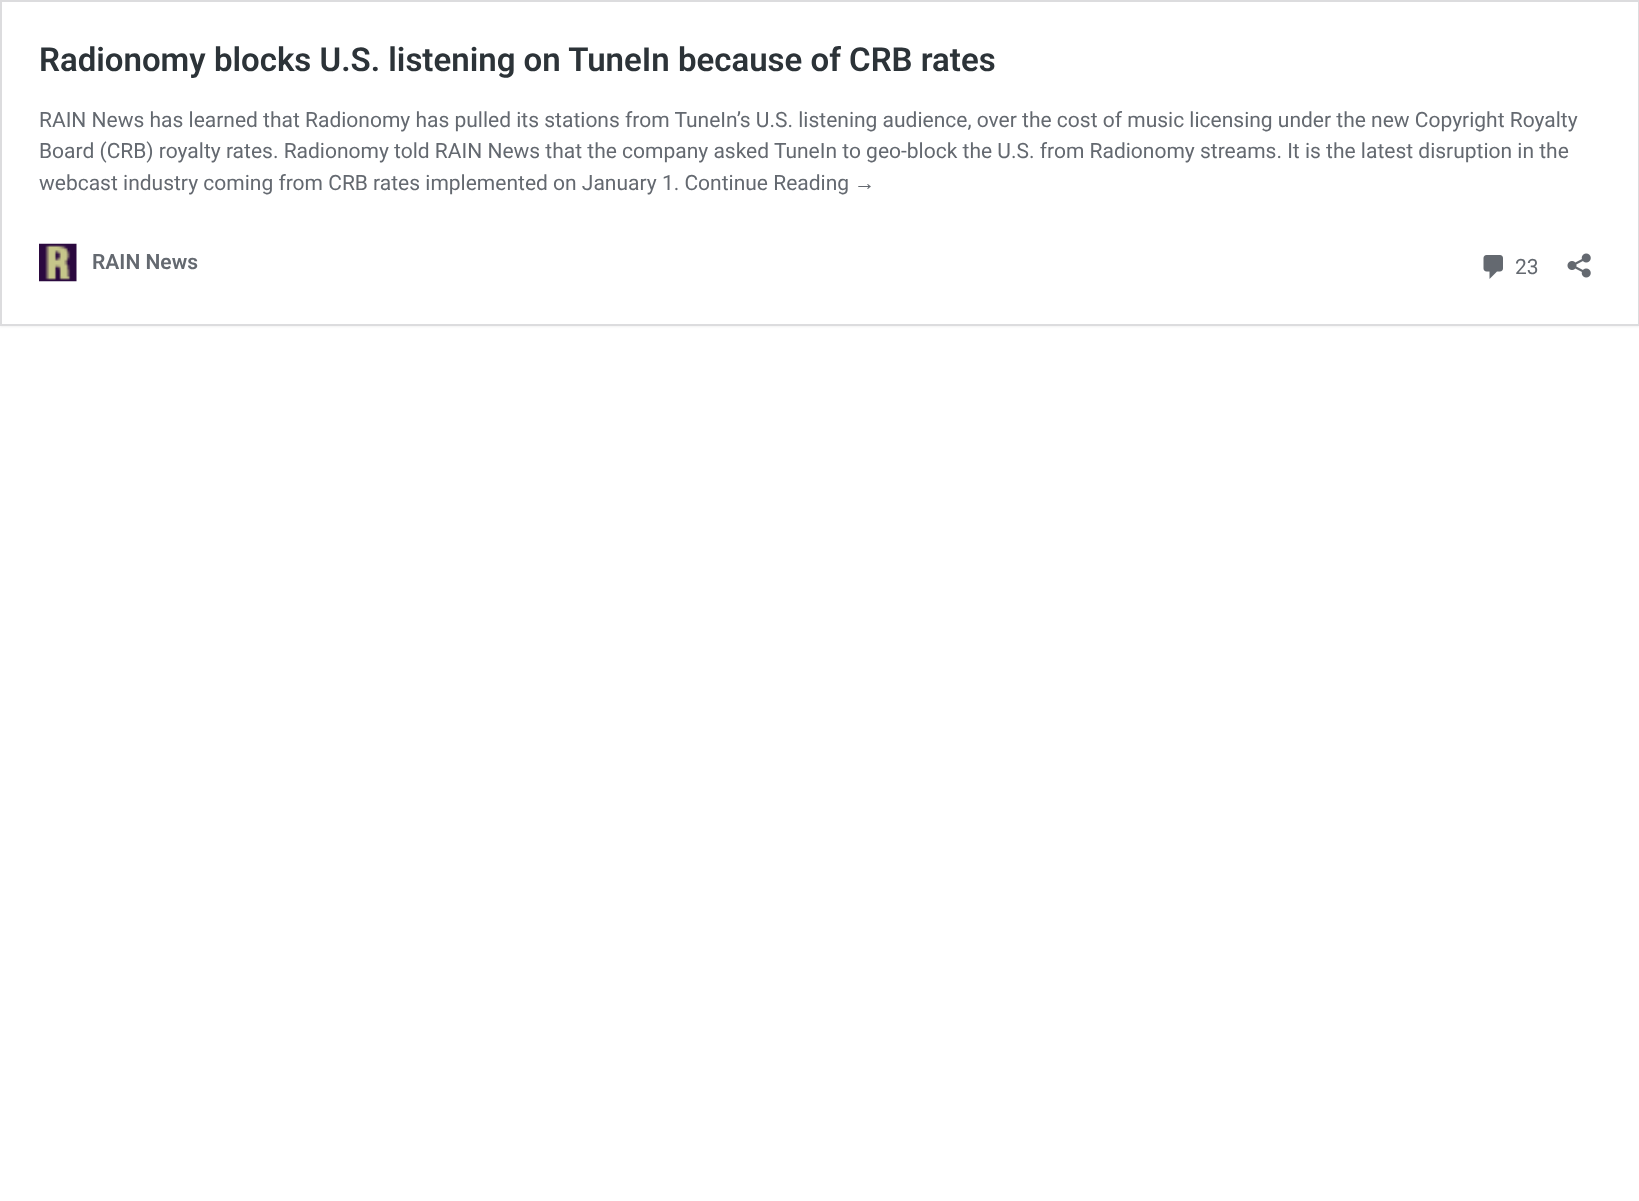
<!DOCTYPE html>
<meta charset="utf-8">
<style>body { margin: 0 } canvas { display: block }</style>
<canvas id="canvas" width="1639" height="1201"></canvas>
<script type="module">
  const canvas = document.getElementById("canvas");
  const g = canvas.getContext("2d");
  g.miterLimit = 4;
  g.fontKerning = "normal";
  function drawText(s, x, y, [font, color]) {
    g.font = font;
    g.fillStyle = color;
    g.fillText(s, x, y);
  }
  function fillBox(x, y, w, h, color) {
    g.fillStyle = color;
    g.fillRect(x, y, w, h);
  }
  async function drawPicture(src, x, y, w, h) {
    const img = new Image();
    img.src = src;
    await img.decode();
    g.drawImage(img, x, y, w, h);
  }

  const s1 = ["600 33px Roboto", "#2C3338"];
  const s2 = ["21px Roboto", "#646970"];
  const s3 = ["21px Liberation Sans", "#646970"];
  const s4 = ["600 21px Roboto", "#646970"];

  fillBox(0, 0, 1639, 1201, "#FFFFFF");
  g.fillStyle = "rgba(0, 0, 0, 0.05)";
  g.filter = "blur(1px)";
  g.beginPath();
  g.rect(0, 2, 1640, 325);
  g.fill();
  g.filter = "none";
  g.fillStyle = "#FFFFFF";
  g.beginPath();
  g.rect(1, 1, 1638, 324);
  g.fill();
  g.strokeStyle = "#DCDCDE";
  g.lineWidth = 2;
  g.stroke();
  drawText("Radionomy blocks U.S. listening on TuneIn because of CRB rates", 39, 71, s1);
  drawText("RAIN News has learned that Radionomy has pulled its stations from TuneIn’s U.S. listening audience, over the cost of music licensing under the new Copyright Royalty", 39, 127, s2);
  drawText("Board (CRB) royalty rates. Radionomy told RAIN News that the company asked TuneIn to geo-block the U.S. from Radionomy streams. It is the latest disruption in the", 39, 158, s2);
  drawText("webcast industry coming from CRB rates implemented on January 1. Continue Reading", 39, 190, s2);
  drawText("→", 854, 190, s3);
  await drawPicture("pic1.png", 39, 243, 38, 39);
  drawText("RAIN News", 92, 269, s4);
  await drawPicture("pic2.png", 1483, 255, 20, 24);
  drawText("23", 1515, 274, s2);
  await drawPicture("pic3.png", 1567, 253, 24, 25);
</script>
